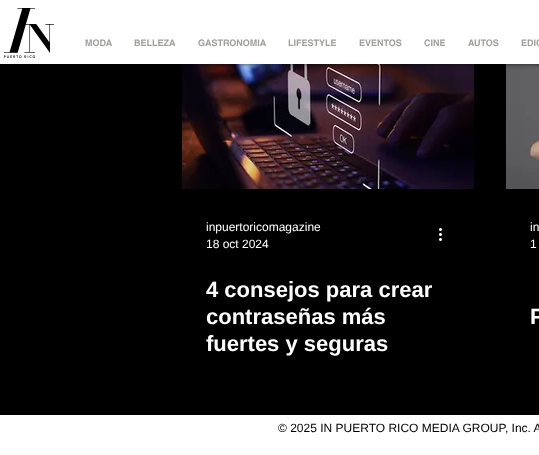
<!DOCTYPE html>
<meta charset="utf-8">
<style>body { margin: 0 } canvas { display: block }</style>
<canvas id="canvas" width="539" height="455"></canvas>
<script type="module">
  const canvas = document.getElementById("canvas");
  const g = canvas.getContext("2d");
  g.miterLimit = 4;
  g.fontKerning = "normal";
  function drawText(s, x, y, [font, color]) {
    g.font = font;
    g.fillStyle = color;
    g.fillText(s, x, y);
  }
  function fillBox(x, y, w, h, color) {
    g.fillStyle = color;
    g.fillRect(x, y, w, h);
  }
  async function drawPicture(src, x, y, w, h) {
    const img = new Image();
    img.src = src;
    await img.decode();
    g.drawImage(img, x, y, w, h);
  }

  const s1 = ["bold 9px helvetica", "#A0A09F"];
  const s2 = ["12px Liberation Sans", "#FFFFFF"];
  const s3 = ["bold 22px Liberation Sans", "#FFFFFF"];
  const s4 = ["12px Liberation Sans", "#000000"];

  fillBox(0, 0, 539, 455, "#FFFFFF");
  fillBox(0, 64, 539, 351, "#000000");
  await drawPicture("pic2.png", 182, 64, 292, 125);
  await drawPicture("pic4.png", 506, 64, 33, 125);
  g.fillStyle = "rgba(0, 0, 0, 0.7)";
  g.filter = "blur(2.5px)";
  g.beginPath();
  g.rect(0, 0, 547, 64);
  g.fill();
  g.filter = "none";
  fillBox(0, 0, 539, 64, "#FFFFFF");
  await drawPicture("pic1.png", 4, 8, 50, 50);
  drawText("MODA", 85, 46, s1);
  drawText("BELLEZA", 134, 46, s1);
  drawText("GASTRONOMIA", 198, 46, s1);
  drawText("LIFESTYLE", 288, 46, s1);
  drawText("EVENTOS", 359, 46, s1);
  drawText("CINE", 424, 46, s1);
  drawText("AUTOS", 468, 46, s1);
  drawText("EDIC", 521, 46, s1);
  drawText("inpuertoricomagazine", 206, 231, s2);
  drawText("18 oct 2024", 206, 248, s2);
  await drawPicture("pic3.png", 439, 228, 3, 13);
  drawText("4 consejos para crear", 206, 297, s3);
  drawText("contraseñas más", 206, 324, s3);
  drawText("fuertes y seguras", 206, 351, s3);
  drawText("in", 530, 231, s2);
  drawText("1", 530, 248, s2);
  drawText("F", 530, 324, s3);
  drawText("© 2025 IN PUERTO RICO MEDIA GROUP, Inc. A", 278, 432, s4);
</script>
